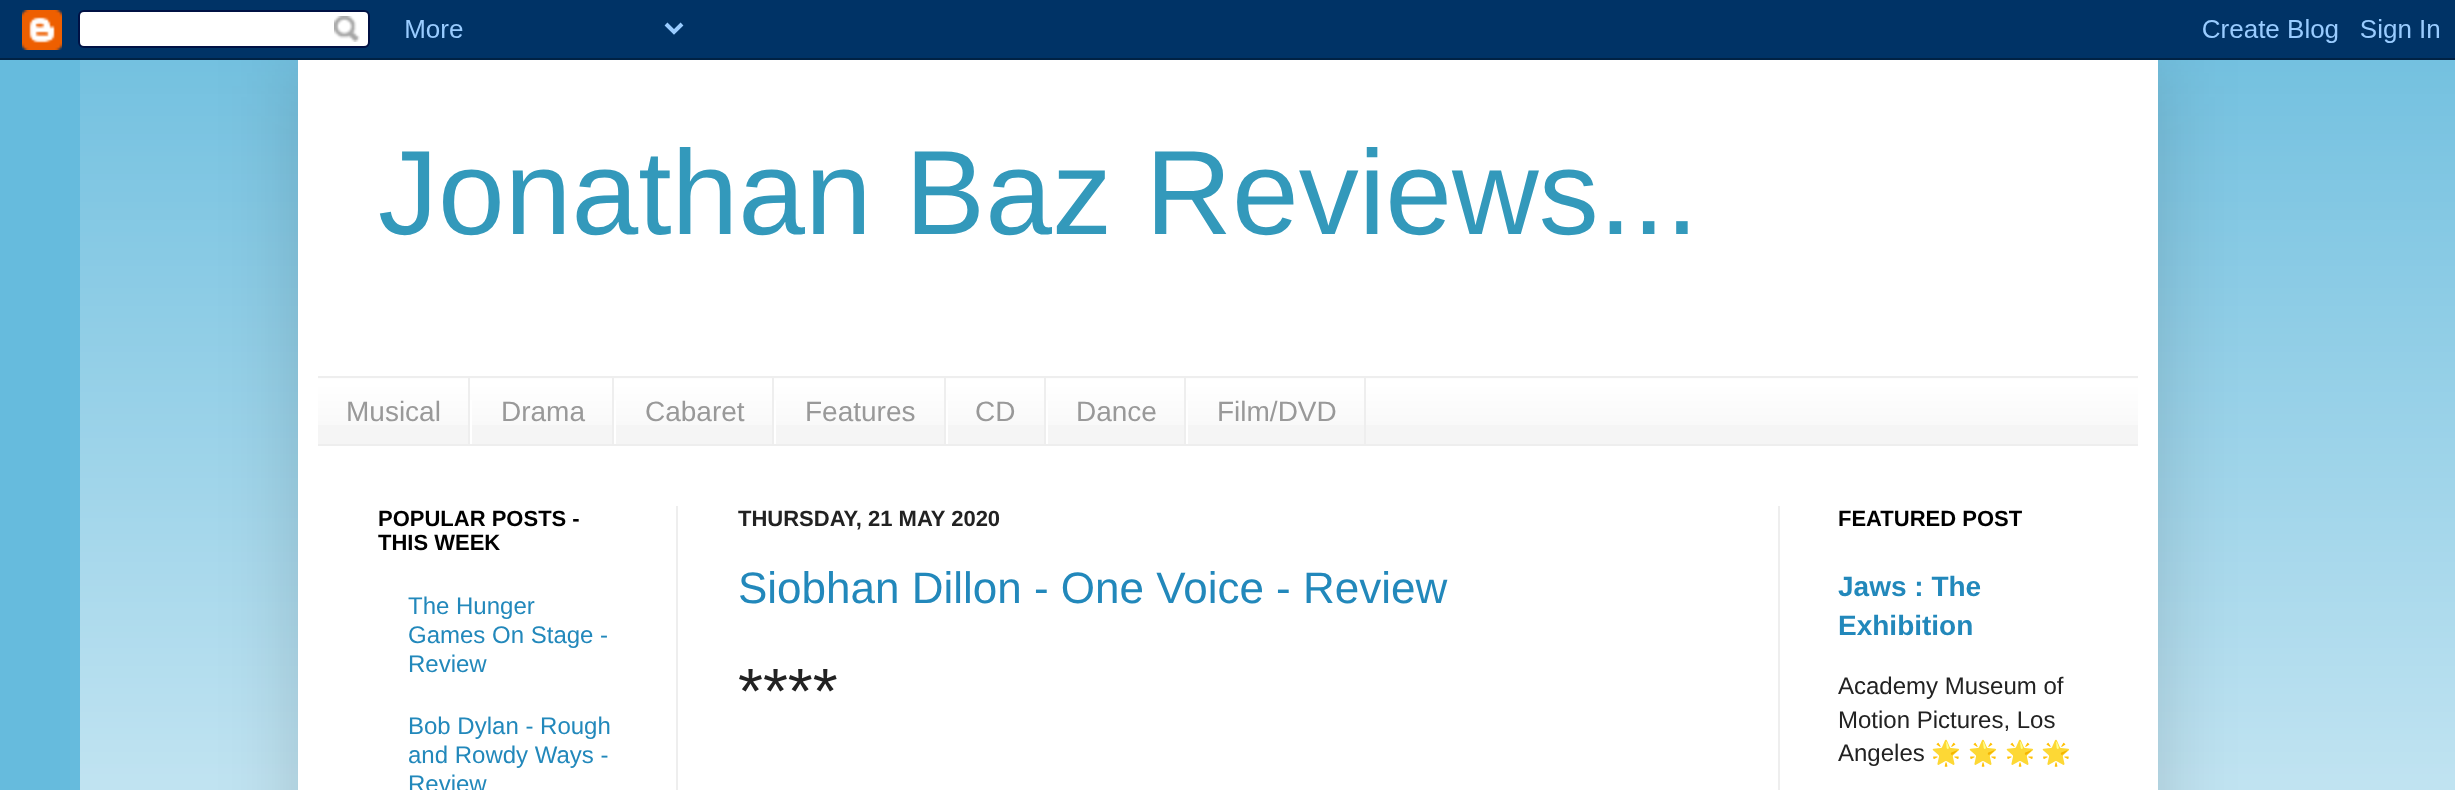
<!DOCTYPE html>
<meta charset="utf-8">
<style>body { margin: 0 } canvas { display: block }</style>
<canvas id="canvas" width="2455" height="790"></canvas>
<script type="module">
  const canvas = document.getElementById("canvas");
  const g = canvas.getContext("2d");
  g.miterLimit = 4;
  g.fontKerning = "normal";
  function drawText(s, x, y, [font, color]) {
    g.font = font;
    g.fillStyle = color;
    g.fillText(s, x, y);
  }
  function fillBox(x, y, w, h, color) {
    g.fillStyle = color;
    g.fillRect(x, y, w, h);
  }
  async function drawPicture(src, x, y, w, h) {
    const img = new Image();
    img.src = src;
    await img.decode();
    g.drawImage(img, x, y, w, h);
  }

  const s1 = ["120px Liberation Sans", "#3399BB"];
  const s2 = ["28px Liberation Sans", "#999999"];
  const s3 = ["bold 22px Liberation Sans", "#000000"];
  const s4 = ["24px Liberation Sans", "#2288BB"];
  const s5 = ["bold 22px Liberation Sans", "#222222"];
  const s6 = ["44px Liberation Sans", "#2288BB"];
  const s7 = ["64px Liberation Sans", "#222222"];
  const s8 = ["bold 28px Liberation Sans", "#2288BB"];
  const s9 = ["24px Liberation Sans", "#222222"];
  const s10 = ["24px Noto Color Emoji", "#222222"];

  fillBox(0, 0, 2455, 790, "#66BBDD");
  await drawPicture("pic2.png", 80, 60, 2375, 730);
  g.fillStyle = "rgba(0, 0, 0, 0.15)";
  g.filter = "blur(40px)";
  g.beginPath();
  g.rect(298, 60, 1860, 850);
  g.fill();
  g.filter = "none";
  await drawPicture("pic1.png", 0, 0, 2455, 60);
  fillBox(298, 60, 1860, 730, "#FFFFFF");
  drawText("Jonathan Baz Reviews...", 378, 234, s1);
  fillBox(318, 378, 1820, 66, "#F5F5F5");
  await drawPicture("pic3.png", 318, 378, 1820, 47);
  fillBox(318, 376, 1820, 2, "#EEEEEE");
  fillBox(318, 444, 1820, 2, "#EEEEEE");
  fillBox(468, 378, 2, 66, "#EEEEEE");
  drawText("Musical", 346, 421, s2);
  fillBox(612, 378, 2, 66, "#EEEEEE");
  fillBox(470, 400, 2, 44, "#FFFFFF");
  drawText("Drama", 501, 421, s2);
  fillBox(772, 378, 2, 66, "#EEEEEE");
  fillBox(614, 400, 2, 44, "#FFFFFF");
  drawText("Cabaret", 645, 421, s2);
  fillBox(944, 378, 2, 66, "#EEEEEE");
  fillBox(774, 400, 2, 44, "#FFFFFF");
  drawText("Features", 805, 421, s2);
  fillBox(1044, 378, 2, 66, "#EEEEEE");
  fillBox(946, 400, 2, 44, "#FFFFFF");
  drawText("CD", 975, 421, s2);
  fillBox(1184, 378, 2, 66, "#EEEEEE");
  fillBox(1046, 400, 2, 44, "#FFFFFF");
  drawText("Dance", 1076, 421, s2);
  fillBox(1364, 378, 2, 66, "#EEEEEE");
  fillBox(1186, 400, 2, 44, "#FFFFFF");
  drawText("Film/DVD", 1217, 421, s2);
  fillBox(676, 506, 2, 284, "#EEEEEE");
  fillBox(1778, 506, 2, 284, "#EEEEEE");
  drawText("POPULAR POSTS -", 378, 526, s3);
  drawText("THIS WEEK", 378, 550, s3);
  drawText("The Hunger", 408, 614, s4);
  drawText("Games On Stage -", 408, 643, s4);
  drawText("Review", 408, 672, s4);
  drawText("Bob Dylan - Rough", 408, 734, s4);
  drawText("and Rowdy Ways -", 408, 763, s4);
  drawText("Review", 408, 792, s4);
  drawText("THURSDAY, 21 MAY 2020", 738, 526, s5);
  drawText("Siobhan Dillon - One Voice - Review", 738, 603, s6);
  drawText("****", 738, 713, s7);
  drawText("FEATURED POST", 1838, 526, s3);
  drawText("Jaws : The", 1838, 596, s8);
  drawText("Exhibition", 1838, 635, s8);
  drawText("Academy Museum of", 1838, 694, s9);
  drawText("Motion Pictures, Los", 1838, 728, s9);
  drawText("Angeles", 1838, 761, s9);
  drawText("🌟", 1931, 761, s10);
  drawText("🌟", 1968, 761, s10);
  drawText("🌟", 2005, 761, s10);
  drawText("🌟", 2041, 761, s10);
</script>
